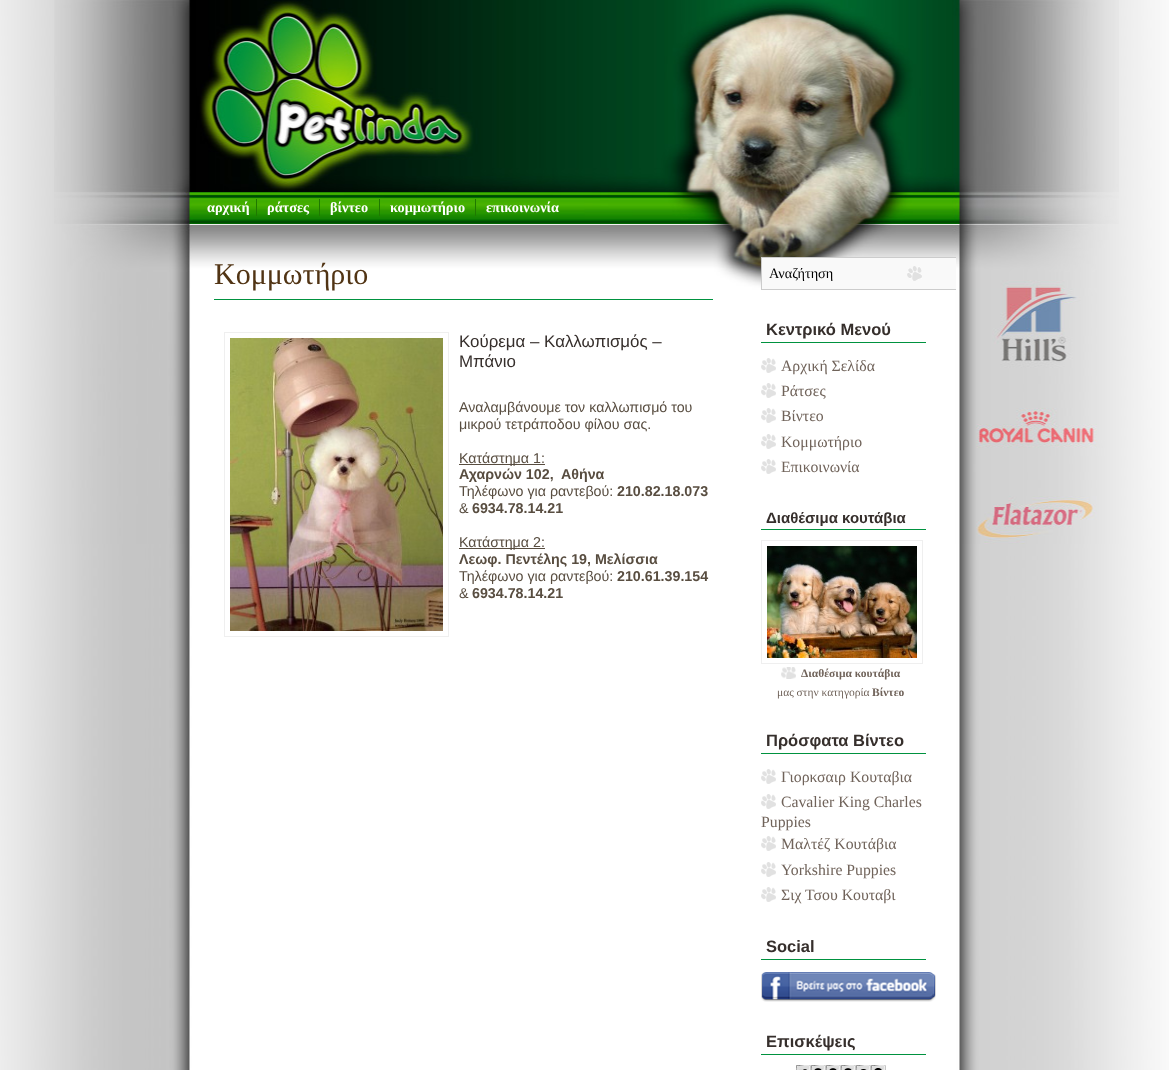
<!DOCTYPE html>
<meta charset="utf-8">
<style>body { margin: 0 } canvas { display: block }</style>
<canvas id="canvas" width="1169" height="1070"></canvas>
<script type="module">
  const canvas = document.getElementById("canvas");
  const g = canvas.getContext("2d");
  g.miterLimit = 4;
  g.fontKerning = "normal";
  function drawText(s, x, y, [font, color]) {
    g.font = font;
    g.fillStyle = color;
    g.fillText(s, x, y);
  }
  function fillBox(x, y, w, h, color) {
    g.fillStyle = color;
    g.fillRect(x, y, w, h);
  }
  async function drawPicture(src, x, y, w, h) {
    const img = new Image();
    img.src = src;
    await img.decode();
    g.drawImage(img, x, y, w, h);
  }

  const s1 = ["bold 14.25px Liberation Serif", "#FFFFFF"];
  const s2 = ["30px Liberation Serif", "#513414"];
  const s3 = ["16.9px Liberation Sans", "#362F2C"];
  const s4 = ["14.25px Liberation Sans", "#584D40"];
  const s5 = ["bold 14.25px Liberation Sans", "#584D40"];
  const s6 = ["14.25px Liberation Serif", "#000000"];
  const s7 = ["bold 16.5px Liberation Sans", "#362F2C"];
  const s8 = ["15.75px Liberation Serif", "#70635A"];
  const s9 = ["bold 15px Liberation Sans", "#362F2C"];
  const s10 = ["bold 11.5px Liberation Serif", "#70635A"];
  const s11 = ["11.5px Liberation Serif", "#70635A"];

  fillBox(0, 0, 1169, 1070, "#FFFFFF");
  await drawPicture("pic1.png", 0, 0, 1169, 1070);
  await drawPicture("pic2.png", 54, 0, 1065, 544);
  drawText("αρχική", 207, 212, s1);
  fillBox(256, 199, 1, 17, "#1F7900");
  drawText("ράτσες", 267, 212, s1);
  fillBox(319, 199, 1, 17, "#1F7900");
  drawText("βίντεο", 330, 212, s1);
  fillBox(379, 199, 1, 17, "#1F7900");
  drawText("κομμωτήριο", 390, 212, s1);
  fillBox(475, 199, 1, 17, "#1F7900");
  drawText("επικοινωνία", 486, 212, s1);
  drawText("Κομμωτήριο", 214, 284, s2);
  fillBox(214, 299, 499, 1, "#00923F");
  g.strokeStyle = "#EFEFEF";
  g.strokeRect(224.5, 332.5, 224, 304);
  await drawPicture("pic3.png", 230, 338, 213, 293);
  drawText("Κούρεμα – Καλλωπισμός –", 459, 347, s3);
  drawText("Μπάνιο", 459, 367, s3);
  drawText("Αναλαμβάνουμε τον καλλωπισμό του", 459, 412, s4);
  drawText("μικρού τετράποδου φίλου σας.", 459, 429, s4);
  fillBox(459, 464, 86, 1, "#584D40");
  drawText("Κατάστημα 1:", 459, 463, s4);
  drawText("Αχαρνών 102,  Αθήνα", 459, 479, s5);
  drawText("Τηλέφωνο για ραντεβού:", 459, 496, s4);
  drawText("210.82.18.073", 617, 496, s5);
  drawText("&", 459, 513, s4);
  drawText("6934.78.14.21", 472, 513, s5);
  fillBox(459, 548, 86, 1, "#584D40");
  drawText("Κατάστημα 2:", 459, 547, s4);
  drawText("Λεωφ. Πεντέλης 19, Μελίσσια", 459, 564, s5);
  drawText("Τηλέφωνο για ραντεβού:", 459, 581, s4);
  drawText("210.61.39.154", 617, 581, s5);
  drawText("&", 459, 598, s4);
  drawText("6934.78.14.21", 472, 598, s5);
  fillBox(762, 258, 194, 31, "#F9F9F9");
  await drawPicture("pic4.png", 907, 266, 15, 15);
  g.save();
  g.beginPath();
  g.rect(214, 215, 742, 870);
  g.clip();
  g.strokeStyle = "#CCCCCC";
  g.strokeRect(761.5, 257.5, 211, 32);
  g.restore();
  drawText("Αναζήτηση", 769, 278, s6);
  fillBox(761, 342, 165, 1, "#00923F");
  drawText("Κεντρικό Μενού", 766, 335, s7);
  await drawPicture("pic5.png", 761, 358, 15, 15);
  drawText("Αρχική Σελίδα", 781, 371, s8);
  await drawPicture("pic5.png", 761, 383, 15, 15);
  drawText("Ράτσες", 781, 396, s8);
  await drawPicture("pic5.png", 761, 408, 15, 15);
  drawText("Βίντεο", 781, 421, s8);
  await drawPicture("pic5.png", 761, 434, 15, 15);
  drawText("Κομμωτήριο", 781, 447, s8);
  await drawPicture("pic5.png", 761, 459, 15, 15);
  drawText("Επικοινωνία", 781, 472, s8);
  fillBox(761, 529, 165, 1, "#00923F");
  drawText("Διαθέσιμα κουτάβια", 766, 523, s9);
  g.strokeRect(761.5, 540.5, 161, 123);
  await drawPicture("pic6.png", 767, 546, 150, 112);
  await drawPicture("pic7.png", 781, 667, 15, 12);
  drawText("Διαθέσιμα κουτάβια", 801, 677, s10);
  drawText("μας στην κατηγορία", 777, 696, s11);
  drawText("Βίντεο", 872, 696, s10);
  fillBox(761, 753, 165, 1, "#00923F");
  drawText("Πρόσφατα Βίντεο", 766, 746, s7);
  await drawPicture("pic5.png", 761, 769, 15, 15);
  drawText("Γιορκσαιρ Κουταβια", 781, 782, s8);
  await drawPicture("pic5.png", 761, 794, 15, 15);
  drawText("Cavalier King Charles", 781, 807, s8);
  drawText("Puppies", 761, 827, s8);
  await drawPicture("pic5.png", 761, 836, 15, 15);
  drawText("Μαλτέζ Κουτάβια", 781, 849, s8);
  await drawPicture("pic5.png", 761, 862, 15, 15);
  drawText("Yorkshire Puppies", 781, 875, s8);
  await drawPicture("pic5.png", 761, 887, 15, 15);
  drawText("Σιχ Τσου Κουταβι", 781, 900, s8);
  fillBox(761, 959, 165, 1, "#00923F");
  drawText("Social", 766, 952, s7);
  await drawPicture("pic8.png", 761, 972, 175, 30);
  fillBox(761, 1054, 165, 1, "#00923F");
  drawText("Επισκέψεις", 766, 1047, s7);
  await drawPicture("pic9.png", 796, 1065, 15, 5);
  await drawPicture("pic10.png", 811, 1065, 15, 5);
  await drawPicture("pic10.png", 826, 1065, 15, 5);
  await drawPicture("pic10.png", 841, 1065, 15, 5);
  await drawPicture("pic11.png", 856, 1065, 15, 5);
  await drawPicture("pic12.png", 871, 1065, 15, 5);
</script>
